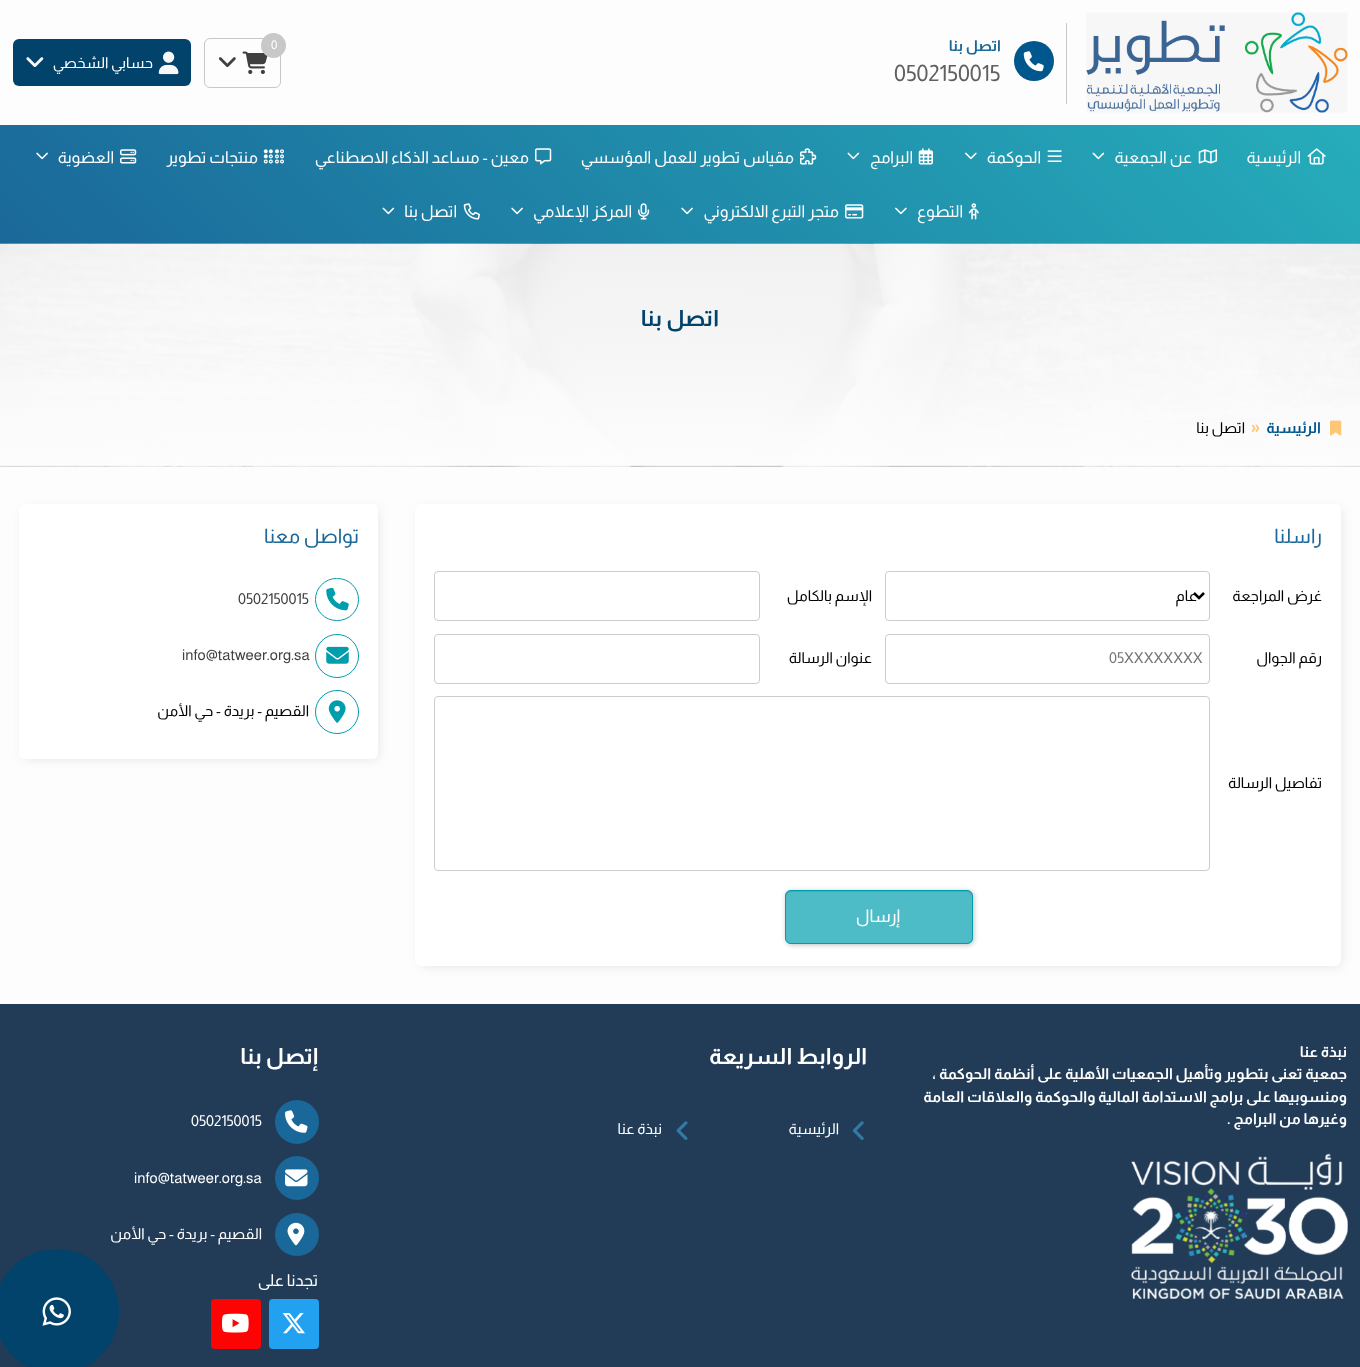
<!DOCTYPE html>
<meta charset="utf-8">
<style>body { margin: 0 } canvas { display: block }</style>
<canvas id="canvas" width="1360" height="1367"></canvas>
<script type="module">
  const canvas = document.getElementById("canvas");
  const g = canvas.getContext("2d");
  g.miterLimit = 4;
  g.fontKerning = "normal";
  function drawText(s, x, y, [font, color]) {
    g.font = font;
    g.fillStyle = color;
    g.fillText(s, x, y);
  }
  function fillBox(x, y, w, h, color) {
    g.fillStyle = color;
    g.fillRect(x, y, w, h);
  }
  function fillRounded(x, y, w, h, r, color) {
    g.fillStyle = color;
    g.beginPath();
    g.roundRect(x, y, w, h, r);
    g.fill();
  }
  async function drawPicture(src, x, y, w, h) {
    const img = new Image();
    img.src = src;
    await img.decode();
    g.drawImage(img, x, y, w, h);
  }
  let gradient;

  const s1 = ["bold 15px Almarai", "#1A6899"];
  const s2 = ["22.5px Almarai", "#606060"];
  const s3 = ["12px Almarai", "#FFFFFF"];
  const s4 = ["15px Almarai", "#FFFFFF"];
  const s5 = ["16.25px Almarai", "#FFFFFF"];
  const s6 = ["bold 22.5px Almarai", "#01436B"];
  const s7 = ["bold 15px Almarai", "#00578D"];
  const s8 = ["bold 17.5px Almarai", "#FFC675"];
  const s9 = ["15px Almarai", "#000000"];
  const s10 = ["20px Almarai", "#1A6899"];
  const s11 = ["15px Almarai", "#757575"];
  const s12 = ["17.5px Almarai", "#FFFFFF"];
  const s13 = ["15px Almarai", "#404040"];
  const s14 = ["bold 15px Almarai", "#FFFFFF"];
  const s15 = ["bold 22.5px Almarai", "#FFFFFF"];

  fillBox(0, 0, 1360, 1367, "#FDFDFD");
  await drawPicture("pic1.png", 1086, 12, 262, 101);
  fillBox(1066, 23, 1, 81, "#C8C8C8");
  g.fillStyle = "#00578D";
  g.beginPath();
  g.arc(1034, 61, 20, 0, Math.PI * 2);
  g.fill();
  await drawPicture("pic2.png", 1023, 51, 21, 21);
  g.direction = "rtl";
  drawText("اتصل بنا", 1001, 51, s1);
  g.direction = "ltr";
  drawText("0502150015", 894, 81, s2);
  g.beginPath();
  g.roundRect(204.5, 38.5, 76, 49, 5.5);
  g.strokeStyle = "#C8C8C8";
  g.stroke();
  await drawPicture("pic3.png", 242, 51, 26, 23);
  g.fillStyle = "#C8C8C8";
  g.beginPath();
  g.arc(273.5, 45.5, 12.5, 0, Math.PI * 2);
  g.fill();
  drawText("0", 271, 49, s3);
  await drawPicture("pic4.png", 218, 57, 18, 10);
  fillRounded(13, 39, 178, 47, 6, "#01436B");
  await drawPicture("pic5.png", 158, 51, 21, 24);
  g.direction = "rtl";
  drawText("حسابي الشخصي", 153, 68, s4);
  await drawPicture("pic6.png", 26, 57, 18, 10);
  gradient = g.createLinearGradient(310, 554, 1050, -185);
  gradient.addColorStop(0, "#1A6899");
  gradient.addColorStop(1, "#26ADBB");
  g.fillStyle = gradient;
  g.fillRect(0, 125, 1360, 119);
  await drawPicture("pic7.png", 1307, 148, 19, 17);
  drawText("الرئيسية", 1301, 163, s5);
  await drawPicture("pic8.png", 1198, 149, 20, 15);
  drawText("عن الجمعية", 1192, 163, s5);
  await drawPicture("pic9.png", 1092, 152, 13, 8);
  await drawPicture("pic10.png", 1047, 150, 15, 12);
  drawText("الحوكمة", 1041, 163, s5);
  await drawPicture("pic11.png", 965, 152, 12, 8);
  await drawPicture("pic12.png", 918, 148, 15, 17);
  drawText("البرامج", 913, 163, s5);
  await drawPicture("pic13.png", 847, 152, 13, 8);
  await drawPicture("pic14.png", 800, 148, 17, 17);
  drawText("مقياس تطوير للعمل المؤسسي", 794, 163, s5);
  await drawPicture("pic15.png", 535, 148, 17, 17);
  drawText("معين - مساعد الذكاء الاصطناعي", 529, 163, s5);
  await drawPicture("pic16.png", 263, 149, 21, 15);
  drawText("منتجات تطوير", 258, 163, s5);
  await drawPicture("pic17.png", 120, 149, 17, 15);
  drawText("العضوية", 114, 163, s5);
  await drawPicture("pic18.png", 36, 152, 12, 8);
  await drawPicture("pic19.png", 968, 203, 11, 17);
  drawText("التطوع", 963, 217, s5);
  await drawPicture("pic20.png", 895, 207, 12, 8);
  await drawPicture("pic21.png", 845, 204, 19, 15);
  drawText("متجر التبرع الالكتروني", 839, 217, s5);
  await drawPicture("pic22.png", 681, 207, 12, 8);
  await drawPicture("pic23.png", 638, 203, 12, 17);
  drawText("المركز الإعلامي", 632, 217, s5);
  await drawPicture("pic24.png", 511, 207, 12, 8);
  await drawPicture("pic25.png", 463, 203, 17, 17);
  drawText("اتصل بنا", 457, 217, s5);
  await drawPicture("pic26.png", 382, 207, 13, 8);
  await drawPicture("pic27.png", 0, 243, 1360, 224);
  drawText("اتصل بنا", 719, 326, s6);
  await drawPicture("pic28.png", 1330, 420, 12, 16);
  drawText("الرئيسية", 1321, 433, s7);
  g.direction = "ltr";
  drawText("»", 1251, 433, s8);
  g.direction = "rtl";
  drawText("اتصل بنا", 1245, 433, s9);
  g.fillStyle = "rgba(0, 0, 0, 0.1)";
  g.filter = "blur(6px)";
  g.beginPath();
  g.roundRect(420, 509, 921, 457, 4);
  g.fill();
  g.filter = "none";
  fillRounded(415, 504, 926, 462, 6, "#FFFFFF");
  drawText("راسلنا", 1322, 543, s10);
  drawText("غرض المراجعة", 1322, 601, s9);
  g.beginPath();
  g.roundRect(885.5, 571.5, 324, 49, 3.5);
  g.strokeStyle = "#CCCCCC";
  g.stroke();
  g.beginPath();
  g.moveTo(1194, 593);
  g.lineTo(1199, 598);
  g.lineTo(1204, 593);
  g.strokeStyle = "#000000";
  g.lineWidth = 2.5;
  g.stroke();
  drawText("عام", 1197, 601, s9);
  drawText("الإسم بالكامل", 872, 601, s9);
  g.beginPath();
  g.roundRect(434.5, 571.5, 325, 49, 3.5);
  g.strokeStyle = "#CCCCCC";
  g.lineWidth = 1;
  g.stroke();
  drawText("رقم الجوال", 1322, 663, s9);
  g.beginPath();
  g.roundRect(885.5, 634.5, 324, 49, 3.5);
  g.stroke();
  g.direction = "ltr";
  drawText("05XXXXXXXX", 1109, 663, s11);
  g.direction = "rtl";
  drawText("عنوان الرسالة", 872, 663, s9);
  g.beginPath();
  g.roundRect(434.5, 634.5, 325, 49, 3.5);
  g.stroke();
  drawText("تفاصيل الرسالة", 1322, 788, s9);
  g.beginPath();
  g.roundRect(434.5, 696.5, 775, 174, 3.5);
  g.stroke();
  g.fillStyle = "rgba(0, 0, 0, 0.25)";
  g.filter = "blur(2.5px)";
  g.beginPath();
  g.roundRect(786, 891, 188, 54, 6);
  g.fill();
  g.filter = "none";
  fillRounded(785, 890, 188, 54, 6, "#4DBCC7");
  g.fillStyle = "#669ABB";
  g.beginPath();
  g.moveTo(791, 892);
  g.lineTo(966, 892);
  g.bezierCurveTo(969, 892, 971, 895, 971, 898);
  g.lineTo(971, 896);
  g.bezierCurveTo(971, 893, 969, 891, 966, 891);
  g.lineTo(791, 891);
  g.bezierCurveTo(788, 891, 786, 893, 786, 896);
  g.lineTo(786, 898);
  g.bezierCurveTo(786, 895, 788, 892, 791, 892);
  g.closePath();
  g.fill();
  g.beginPath();
  g.roundRect(785.5, 890.5, 187, 53, 5.5);
  g.strokeStyle = "#009DAD";
  g.stroke();
  drawText("إرسال", 900, 922, s12);
  g.fillStyle = "rgba(0, 0, 0, 0.1)";
  g.filter = "blur(6px)";
  g.beginPath();
  g.roundRect(24, 509, 354, 250, 4);
  g.fill();
  g.filter = "none";
  fillRounded(19, 504, 359, 255, 6, "#FFFFFF");
  drawText("تواصل معنا", 359, 543, s10);
  g.beginPath();
  g.roundRect(315.5, 578.5, 43, 42, 21);
  g.stroke();
  await drawPicture("pic29.png", 326, 587, 23, 24);
  g.direction = "ltr";
  drawText("0502150015", 238, 604, s13);
  g.beginPath();
  g.arc(337, 656, 21.5, 0, Math.PI * 2);
  g.stroke();
  await drawPicture("pic30.png", 326, 646, 23, 18);
  drawText("info@tatweer.org.sa", 182, 660, s13);
  g.beginPath();
  g.arc(337, 712, 21.5, 0, Math.PI * 2);
  g.stroke();
  await drawPicture("pic31.png", 328, 700, 18, 23);
  g.direction = "rtl";
  drawText("القصيم - بريدة - حي الأمن", 309, 716, s9);
  fillBox(0, 1004, 1360, 363, "#223C58");
  drawText("نبذة عنا", 1347, 1057, s14);
  drawText("جمعية تعنى بتطوير وتأهيل الجمعيات الأهلية على أنظمة الحوكمة ،", 1347, 1079, s14);
  drawText("ومنسوبيها على برامج الاستدامة المالية والحوكمة والعلاقات العامة", 1347, 1102, s14);
  drawText("وغيرها من البرامج .", 1347, 1124, s14);
  await drawPicture("pic32.png", 1131, 1153, 217, 146);
  drawText("الروابط السريعة", 867, 1064, s15);
  await drawPicture("pic33.png", 852, 1121, 12, 19);
  drawText("الرئيسية", 839, 1134, s4);
  await drawPicture("pic34.png", 676, 1121, 12, 19);
  drawText("نبذة عنا", 662, 1134, s4);
  drawText("إتصل بنا", 318, 1064, s15);
  g.fillStyle = "#1A6899";
  g.beginPath();
  g.arc(297, 1122, 22, 0, Math.PI * 2);
  g.fill();
  await drawPicture("pic35.png", 285, 1110, 23, 23);
  g.direction = "ltr";
  drawText("0502150015", 191, 1126, s4);
  g.fillStyle = "#1A6899";
  g.beginPath();
  g.arc(297, 1178, 22, 0, Math.PI * 2);
  g.fill();
  await drawPicture("pic36.png", 285, 1169, 23, 18);
  drawText("info@tatweer.org.sa", 134, 1183, s4);
  fillRounded(275, 1213, 44, 43, 21.5, "#1A6899");
  await drawPicture("pic37.png", 287, 1222, 18, 24);
  g.direction = "rtl";
  drawText("القصيم - بريدة - حي الأمن", 262, 1239, s4);
  drawText("تجدنا على", 318, 1286, s5);
  fillRounded(269, 1299, 50, 50, 4, "#21A1F0");
  await drawPicture("pic38.png", 282, 1313, 23, 21);
  fillRounded(211, 1299, 50, 50, 4, "#FE0303");
  await drawPicture("pic39.png", 222, 1313, 27, 20);
  g.fillStyle = "#01436B";
  g.beginPath();
  g.arc(56.5, 1311.5, 62.5, 0, Math.PI * 2);
  g.fill();
  await drawPicture("pic40.png", 42, 1297, 29, 29);
</script>
